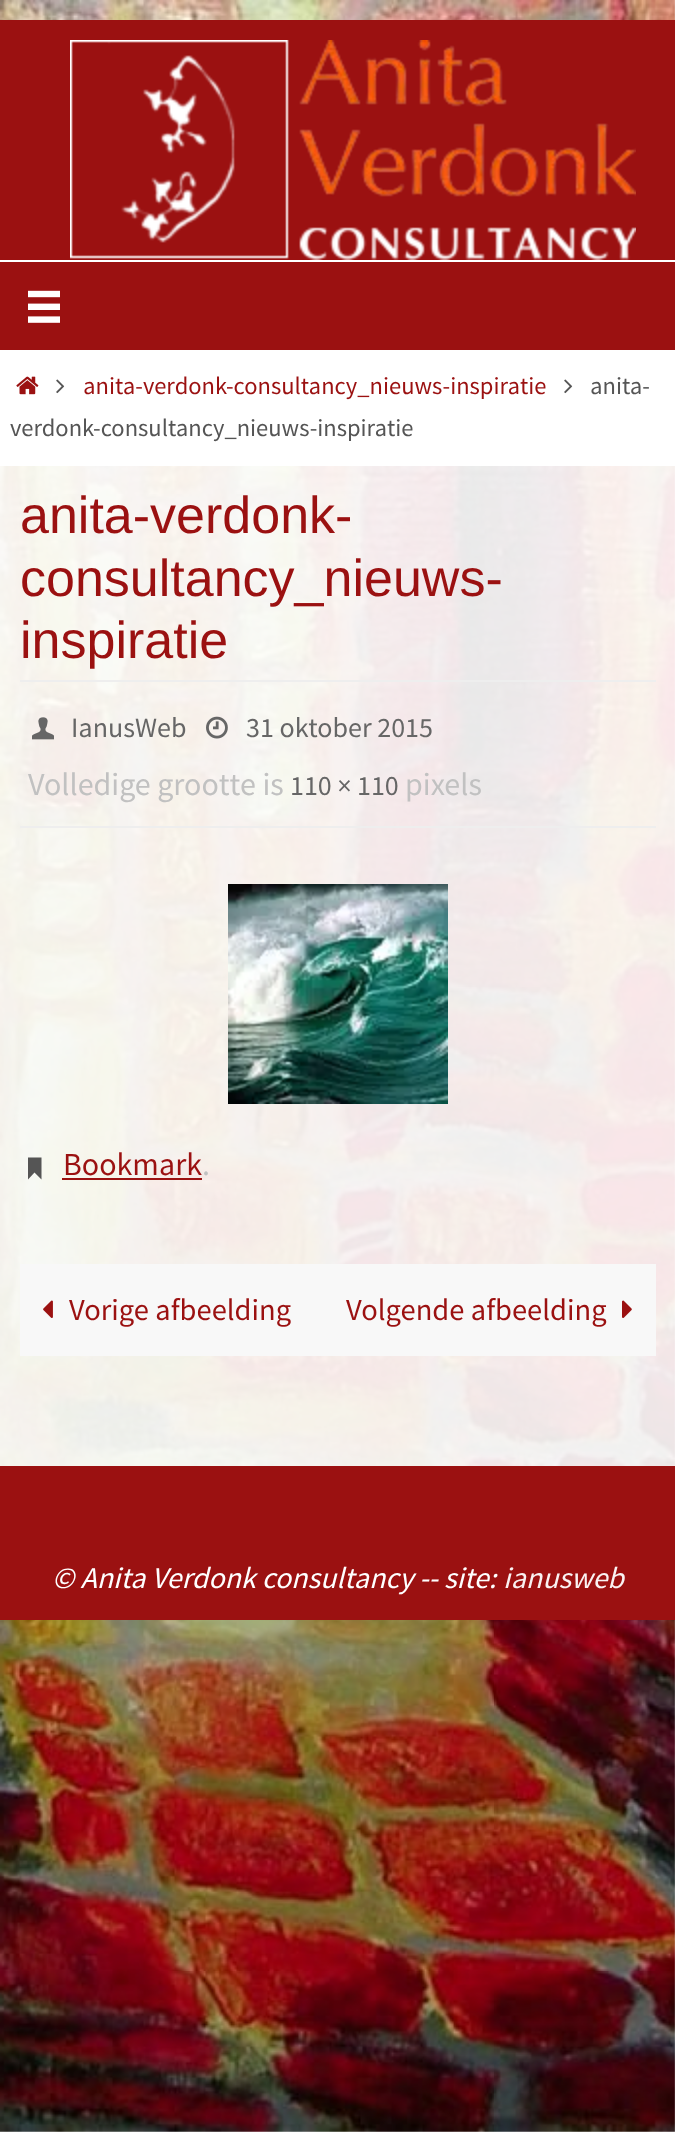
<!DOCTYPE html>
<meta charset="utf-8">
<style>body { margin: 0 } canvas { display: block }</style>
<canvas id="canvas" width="675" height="2132"></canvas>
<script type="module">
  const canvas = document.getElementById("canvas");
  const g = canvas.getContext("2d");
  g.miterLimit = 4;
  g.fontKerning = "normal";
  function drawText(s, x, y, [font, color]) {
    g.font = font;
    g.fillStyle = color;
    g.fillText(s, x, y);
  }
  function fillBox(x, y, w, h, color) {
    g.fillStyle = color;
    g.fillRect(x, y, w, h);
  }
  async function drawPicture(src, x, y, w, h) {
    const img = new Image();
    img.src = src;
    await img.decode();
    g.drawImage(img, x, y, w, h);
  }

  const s1 = ["24.5px Source Sans Pro", "#9B1111"];
  const s2 = ["24.5px Source Sans Pro", "#555555"];
  const s3 = ["52px Liberation Sans", "#9B1111"];
  const s4 = ["28px Source Sans Pro", "#666666"];
  const s5 = ["32px Source Sans Pro", "#C1C1C1"];
  const s6 = ["32px Source Sans Pro", "#9B1111"];
  const s7 = ["30.5px Source Sans Pro", "#9B1111"];
  const s8 = ["italic 30px Source Sans Pro", "#FFFFFF"];
  const s9 = ["italic 30px Source Sans Pro", "#FAF2F2"];

  fillBox(0, 0, 675, 2132, "#FFFFFF");
  await drawPicture("pic1.png", 0, 0, 675, 2132);
  fillBox(0, 20, 675, 330, "#9B1111");
  fillBox(0, 260, 675, 2, "#FFFFFF");
  await drawPicture("pic2.png", 70, 40, 566, 220);
  await drawPicture("pic3.png", 28, 290, 32, 33);
  fillBox(0, 350, 675, 116, "#FFFFFF");
  await drawPicture("pic4.png", 16, 376, 23, 19);
  await drawPicture("pic5.png", 56, 379, 9, 15);
  drawText("anita-verdonk-consultancy_nieuws-inspiratie", 83, 394, s1);
  await drawPicture("pic5.png", 564, 379, 9, 15);
  drawText("anita-", 590, 394, s2);
  drawText("verdonk-consultancy_nieuws-inspiratie", 10, 436, s2);
  fillBox(0, 466, 675, 1000, "rgba(255, 255, 255, 0.9)");
  drawText("anita-verdonk-", 20, 533, s3);
  drawText("consultancy_nieuws-", 20, 596, s3);
  drawText("inspiratie", 20, 658, s3);
  fillBox(20, 680, 636, 2, "#EEEEEE");
  fillBox(20, 826, 636, 2, "#EEEEEE");
  await drawPicture("pic6.png", 32, 717, 22, 23);
  drawText("IanusWeb", 71, 737, s4);
  await drawPicture("pic7.png", 206, 716, 22, 23);
  drawText("31 oktober 2015", 246, 737, s4);
  drawText("Volledige grootte is", 28, 795, s5);
  drawText("110 × 110", 290, 795, s4);
  drawText("pixels", 405, 795, s5);
  await drawPicture("pic8.png", 228, 884, 220, 220);
  g.fillStyle = "#555555";
  g.beginPath();
  g.moveTo(28, 1177);
  g.lineTo(28, 1157.5);
  g.lineTo(41.5, 1157.5);
  g.lineTo(41.5, 1179.5);
  g.lineTo(34.5, 1172.5);
  g.lineTo(28, 1179.5);
  g.closePath();
  g.fill();
  drawText("Bookmark", 63, 1175, s6);
  fillBox(62, 1178, 140, 2, "#9B1111");
  drawText(".", 202, 1175, s5);
  fillBox(20, 1264, 636, 92, "#F8F8F8");
  await drawPicture("pic9.png", 43, 1300, 10, 18);
  drawText("Vorige afbeelding", 69, 1320, s7);
  drawText("Volgende afbeelding", 346, 1320, s7);
  await drawPicture("pic10.png", 622, 1300, 10, 18);
  fillBox(0, 1466, 675, 154, "#9B1111");
  drawText("© Anita Verdonk consultancy -- site:", 52, 1588, s8);
  drawText("ianusweb", 503, 1588, s9);
</script>
